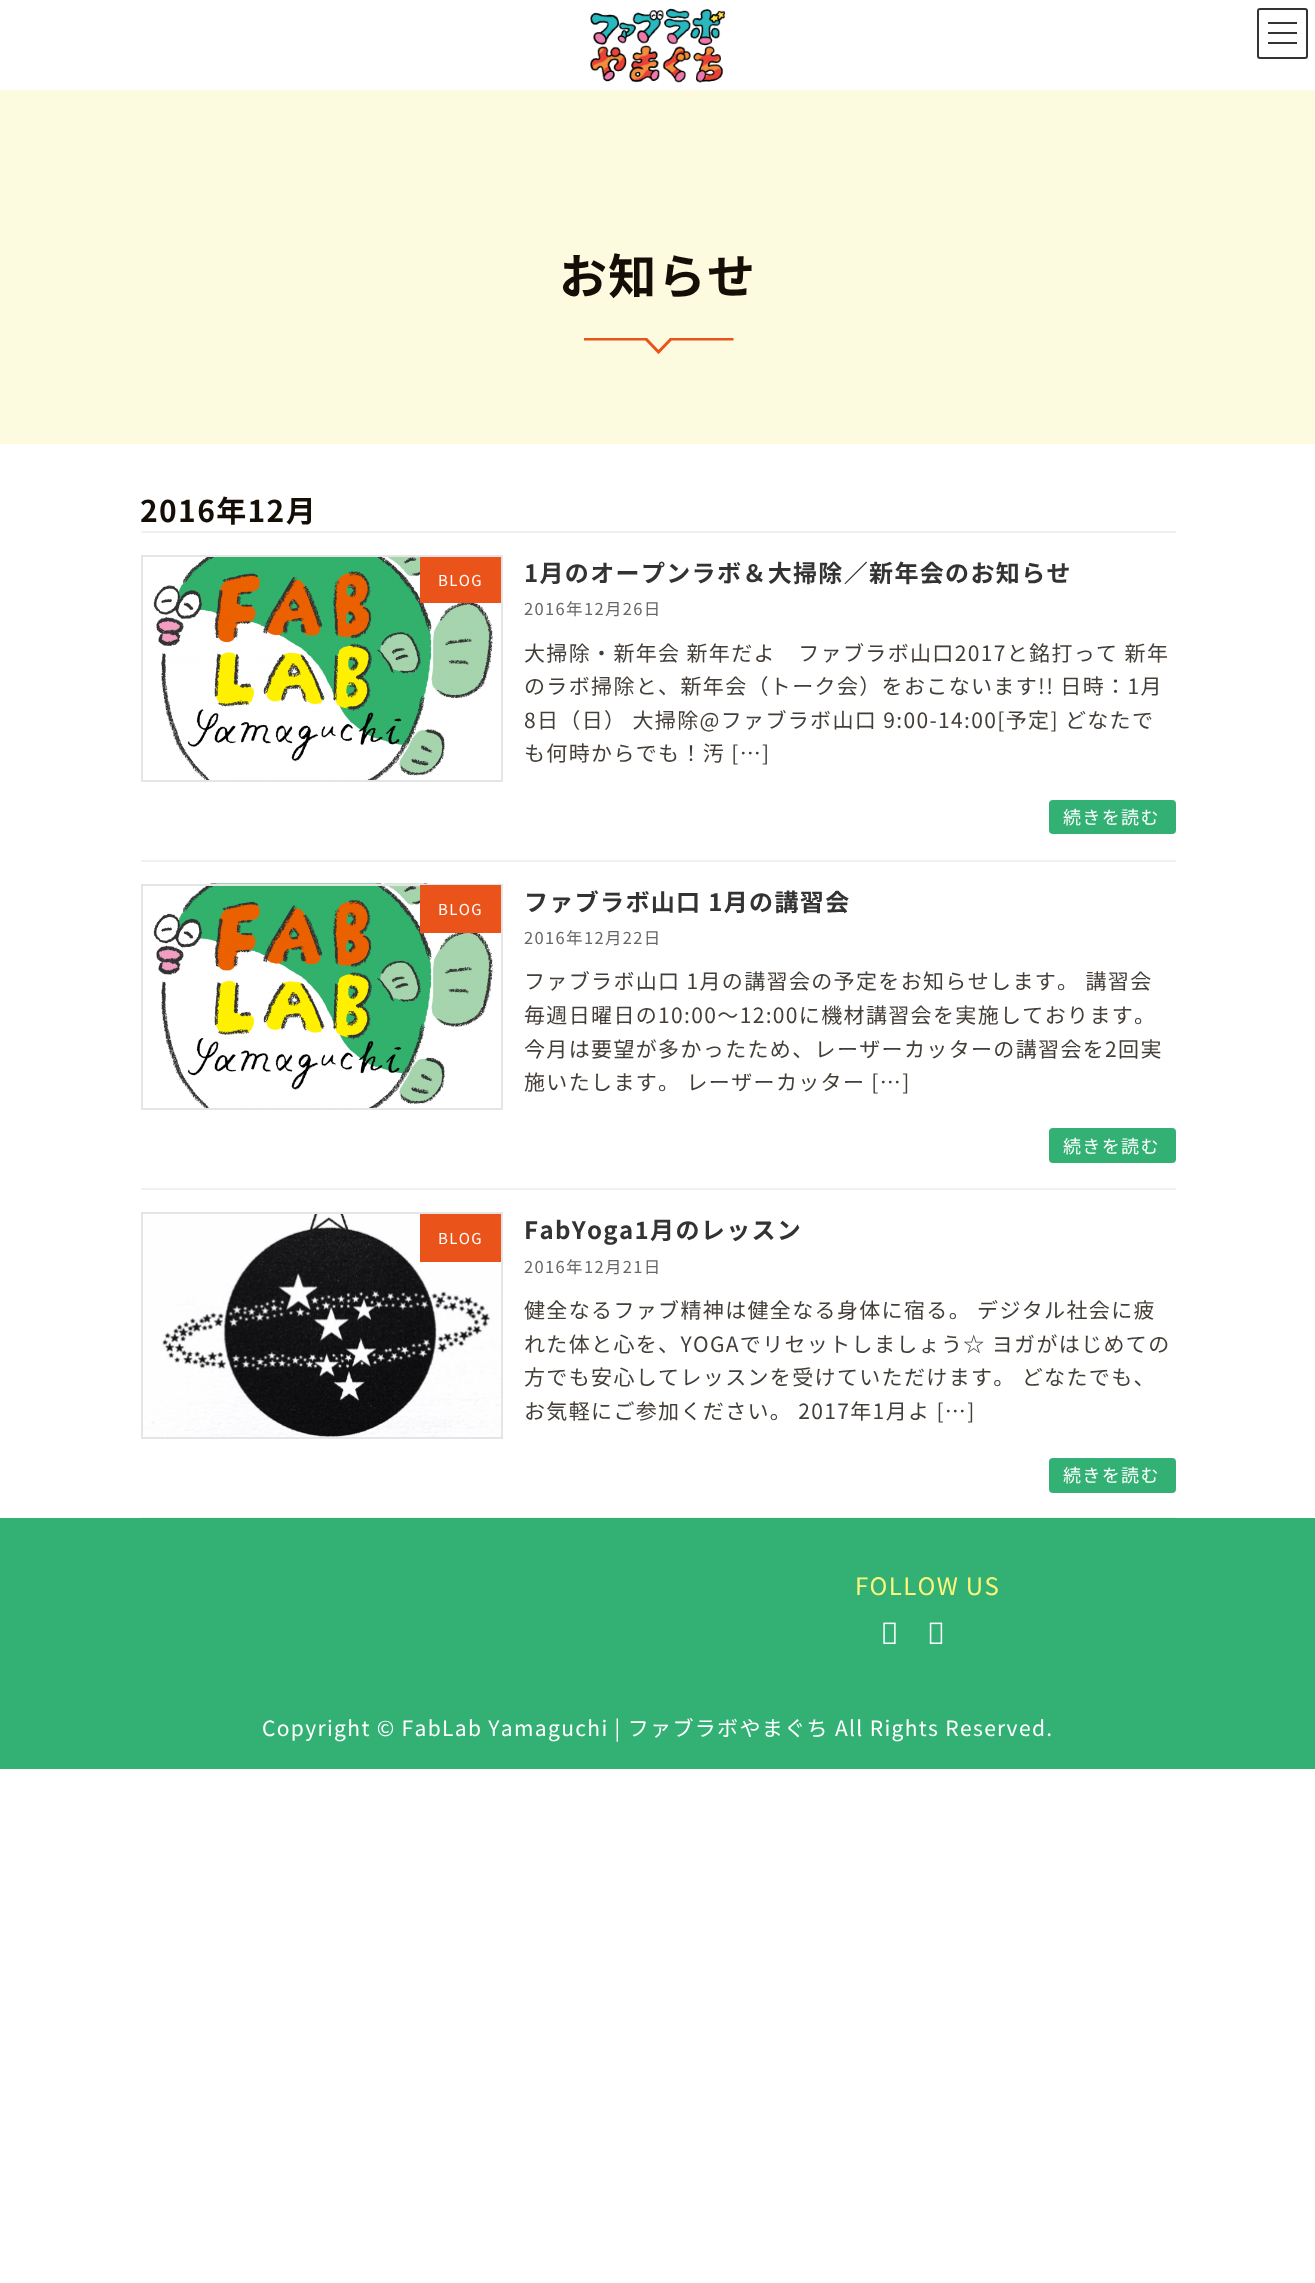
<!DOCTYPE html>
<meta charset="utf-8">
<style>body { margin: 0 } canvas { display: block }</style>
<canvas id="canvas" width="1315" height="2283"></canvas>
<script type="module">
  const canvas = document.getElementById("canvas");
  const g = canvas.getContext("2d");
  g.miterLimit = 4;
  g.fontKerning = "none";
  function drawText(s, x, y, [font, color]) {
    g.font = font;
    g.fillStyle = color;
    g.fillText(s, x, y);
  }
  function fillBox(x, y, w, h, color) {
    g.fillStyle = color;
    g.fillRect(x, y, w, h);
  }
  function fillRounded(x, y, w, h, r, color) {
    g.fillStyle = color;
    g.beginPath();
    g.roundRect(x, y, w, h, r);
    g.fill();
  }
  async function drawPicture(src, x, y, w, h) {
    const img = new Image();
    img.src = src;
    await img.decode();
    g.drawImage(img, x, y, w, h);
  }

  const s1 = ["bold 48px Noto Sans JP", "#150E06"];
  const s2 = ["bold 30px Noto Sans JP", "#150E06"];
  const s3 = ["15px Noto Sans JP", "#FFFFFF"];
  const s4 = ["bold 24px Noto Sans JP", "#333333"];
  const s5 = ["16.5px Noto Sans JP", "#666666"];
  const s6 = ["21px Noto Sans JP", "#443E38"];
  const s7 = ["18px Noto Sans JP", "#FFFFFF"];
  const s8 = ["24px Noto Sans JP", "#FFF77B"];
  const s9 = ["21px Noto Sans JP", "#FFFFFF"];

  fillBox(0, 0, 1315, 2283, "#FFFFFF");
  await drawPicture("pic1.png", 590, 8, 136, 75);
  fillBox(1268, 22, 29, 2, "#333333");
  fillBox(1268, 32, 29, 2, "#333333");
  fillBox(1268, 42, 29, 2, "#333333");
  g.beginPath();
  g.roundRect(1258, 9, 49, 49, 2);
  g.strokeStyle = "#333333";
  g.lineWidth = 2;
  g.stroke();
  fillBox(0, 90, 1315, 354, "#FCFBDF");
  g.letterSpacing = "1.35px";
  drawText("お知らせ", 559, 294, s1);
  g.save();
  g.beginPath();
  g.rect(584, 338, 150, 16);
  g.clip();
  g.beginPath();
  g.moveTo(733.5, 339);
  g.lineTo(671, 339);
  g.lineTo(658.5, 352);
  g.lineTo(646, 339);
  g.lineTo(583.5, 339);
  g.strokeStyle = "#EA531A";
  g.lineWidth = 3;
  g.stroke();
  g.restore();
  drawText("2016年12月", 140, 522, s2);
  fillBox(141, 531, 1035, 2, "#F0F0F0");
  fillBox(141, 860, 1035, 2, "#F0F0F0");
  await drawPicture("pic2.png", 153, 557, 340, 223);
  g.strokeStyle = "#E5E5E5";
  g.strokeRect(142, 556, 360, 225);
  fillBox(420, 557, 81, 46, "#EA531A");
  drawText("BLOG", 438, 586, s3);
  drawText("1月のオープンラボ＆大掃除／新年会のお知らせ", 524, 582, s4);
  drawText("2016年12月26日", 524, 615, s5);
  drawText("大掃除・新年会 新年だよ　ファブラボ山口2017と銘打って 新年", 524, 661, s6);
  drawText("のラボ掃除と、新年会（トーク会）をおこないます!! 日時：1月", 524, 694, s6);
  drawText("8日（日） 大掃除@ファブラボ山口 9:00-14:00[予定] どなたで", 524, 728, s6);
  drawText("も何時からでも！汚 […]", 524, 761, s6);
  fillRounded(1049, 800, 127, 34, 4, "#33B174");
  drawText("続きを読む", 1063, 824, s7);
  fillBox(141, 1188, 1035, 2, "#F0F0F0");
  await drawPicture("pic3.png", 153, 883, 340, 225);
  g.strokeRect(142, 885, 360, 224);
  fillBox(420, 885, 81, 48, "#EA531A");
  drawText("BLOG", 438, 915, s3);
  drawText("ファブラボ山口 1月の講習会", 524, 911, s4);
  drawText("2016年12月22日", 524, 944, s5);
  drawText("ファブラボ山口 1月の講習会の予定をお知らせします。 講習会", 524, 989, s6);
  drawText("毎週日曜日の10:00〜12:00に機材講習会を実施しております。", 524, 1023, s6);
  drawText("今月は要望が多かったため、レーザーカッターの講習会を2回実", 524, 1057, s6);
  drawText("施いたします。 レーザーカッター […]", 524, 1090, s6);
  fillRounded(1049, 1128, 127, 35, 4, "#33B174");
  drawText("続きを読む", 1063, 1153, s7);
  fillBox(141, 1517, 1035, 1, "#F0F0F0");
  await drawPicture("pic4.png", 143, 1214, 358, 223);
  g.strokeRect(142, 1213, 360, 225);
  fillBox(420, 1214, 81, 48, "#EA531A");
  drawText("BLOG", 438, 1244, s3);
  drawText("FabYoga1月のレッスン", 524, 1239, s4);
  drawText("2016年12月21日", 524, 1273, s5);
  drawText("健全なるファブ精神は健全なる身体に宿る。 デジタル社会に疲", 524, 1318, s6);
  drawText("れた体と心を、YOGAでリセットしましょう☆ ヨガがはじめての", 524, 1352, s6);
  drawText("方でも安心してレッスンを受けていただけます。 どなたでも、", 524, 1385, s6);
  drawText("お気軽にご参加ください。 2017年1月よ […]", 524, 1419, s6);
  fillRounded(1049, 1458, 127, 35, 4, "#33B174");
  drawText("続きを読む", 1063, 1482, s7);
  fillBox(0, 1518, 1315, 251, "#33B174");
  drawText("FOLLOW US", 855, 1595, s8);
  await drawPicture("pic5.png", 883, 1622, 13, 22);
  await drawPicture("pic6.png", 929, 1622, 14, 22);
  drawText("Copyright © FabLab Yamaguchi | ファブラボやまぐち All Rights Reserved.", 262, 1736, s9);
</script>
